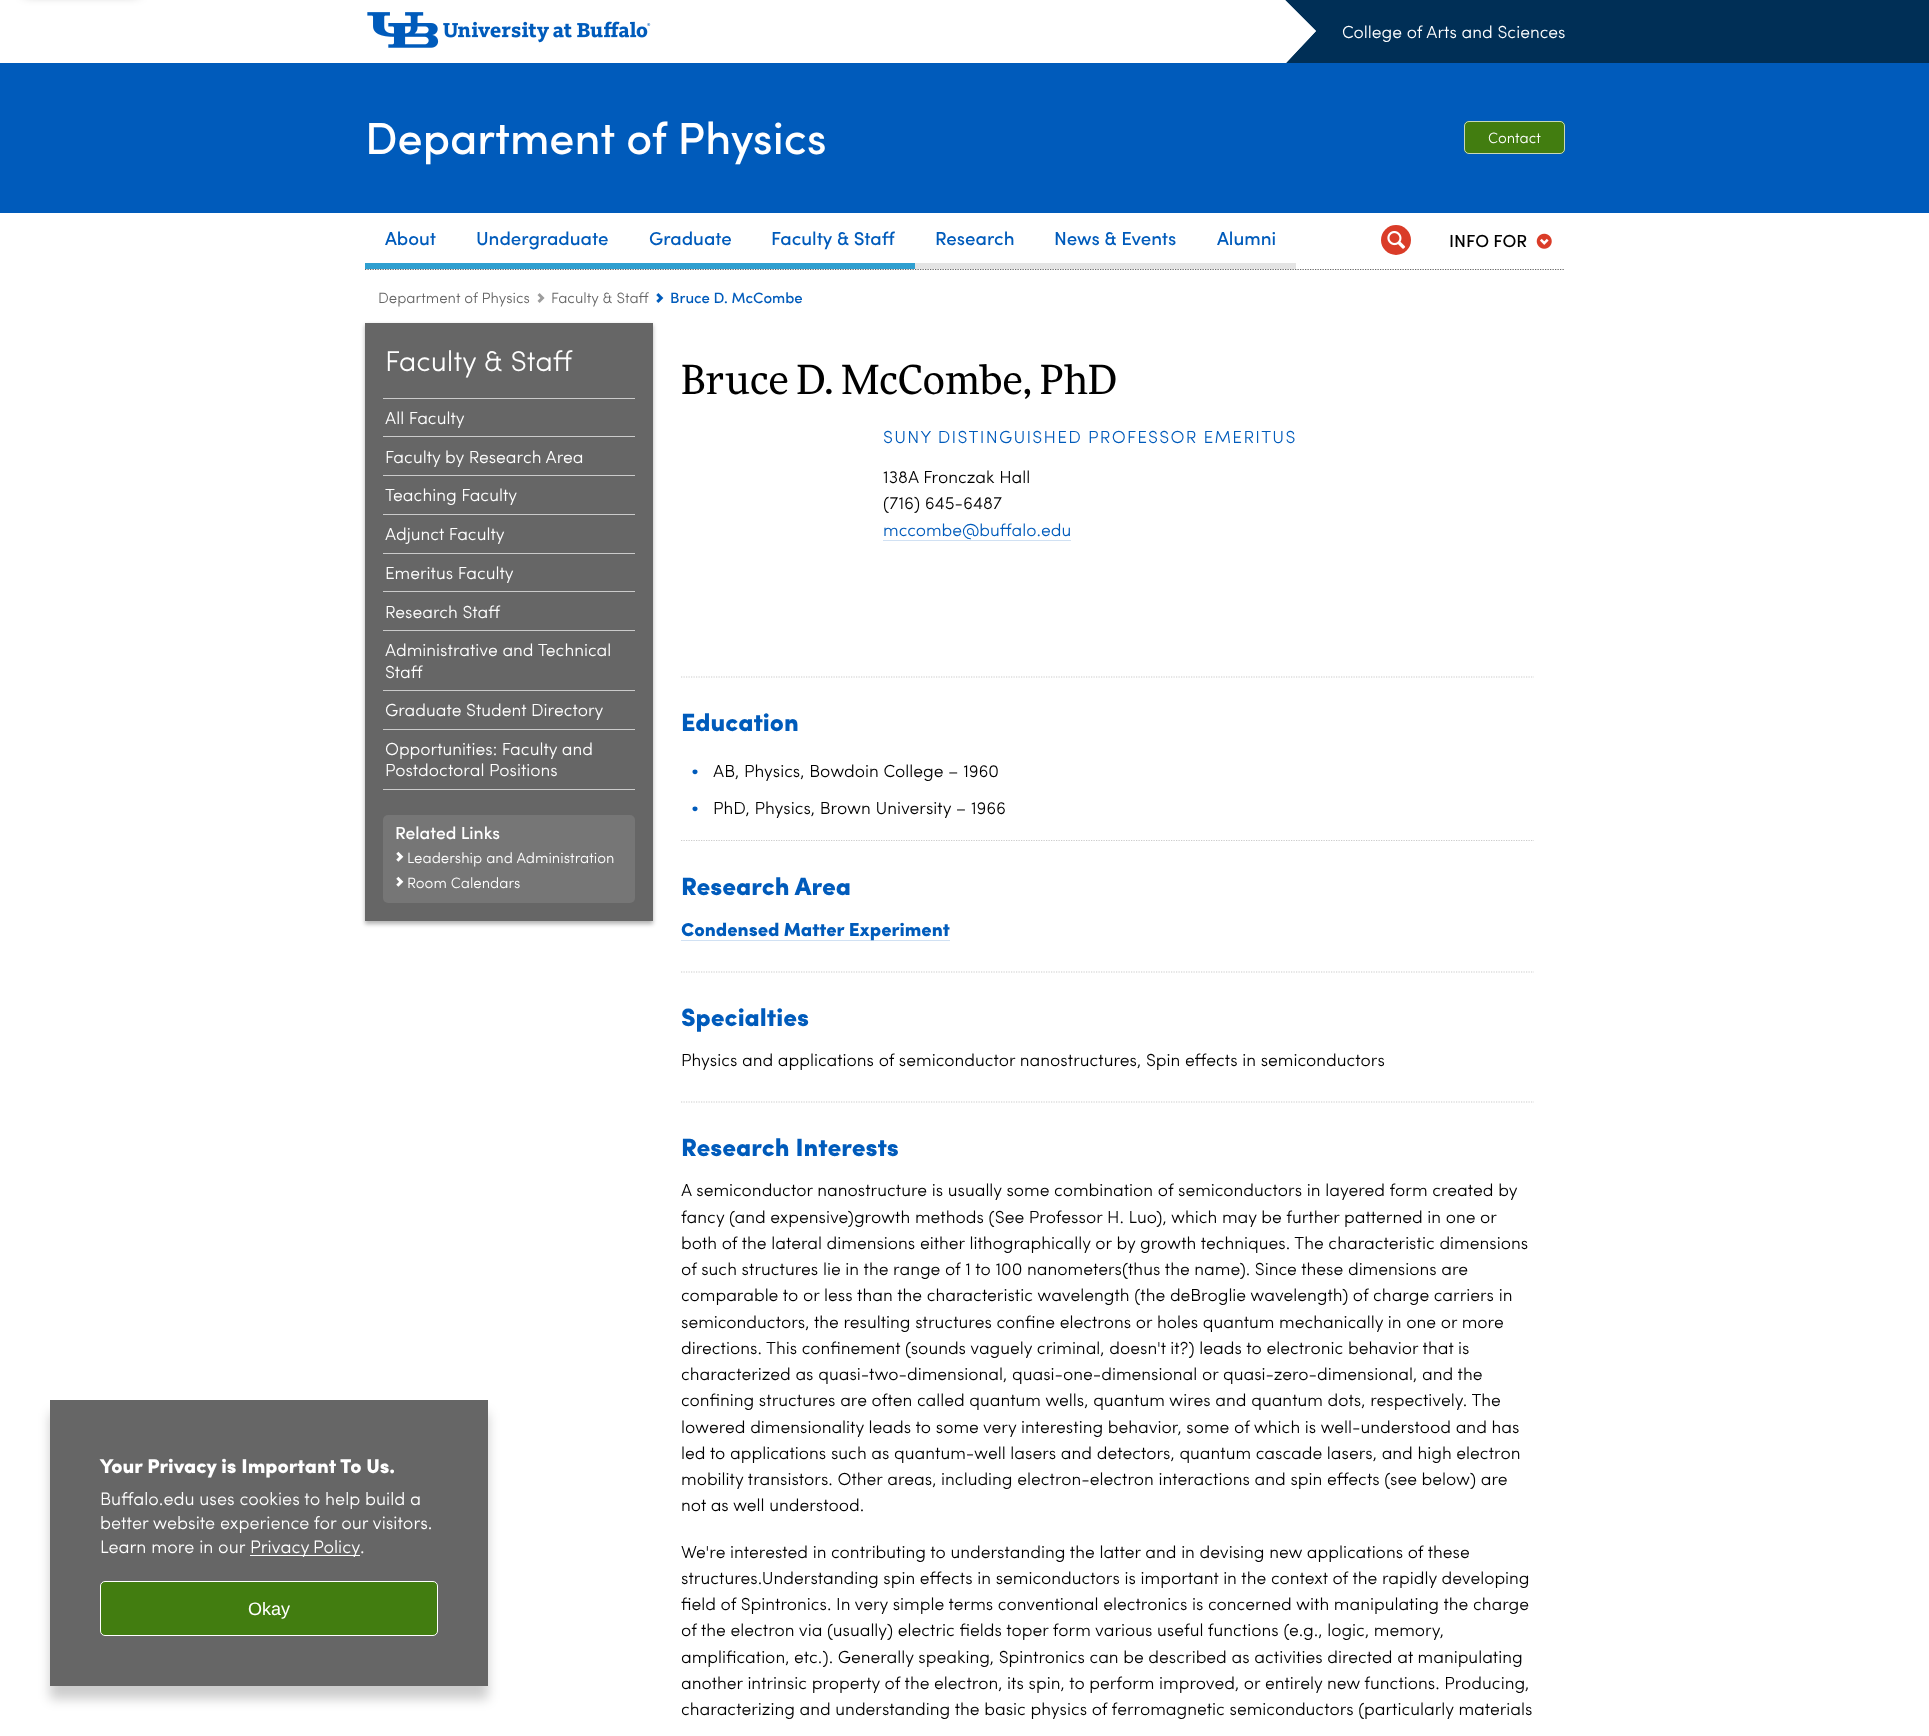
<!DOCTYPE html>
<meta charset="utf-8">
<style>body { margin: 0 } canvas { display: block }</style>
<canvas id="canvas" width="1929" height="1736"></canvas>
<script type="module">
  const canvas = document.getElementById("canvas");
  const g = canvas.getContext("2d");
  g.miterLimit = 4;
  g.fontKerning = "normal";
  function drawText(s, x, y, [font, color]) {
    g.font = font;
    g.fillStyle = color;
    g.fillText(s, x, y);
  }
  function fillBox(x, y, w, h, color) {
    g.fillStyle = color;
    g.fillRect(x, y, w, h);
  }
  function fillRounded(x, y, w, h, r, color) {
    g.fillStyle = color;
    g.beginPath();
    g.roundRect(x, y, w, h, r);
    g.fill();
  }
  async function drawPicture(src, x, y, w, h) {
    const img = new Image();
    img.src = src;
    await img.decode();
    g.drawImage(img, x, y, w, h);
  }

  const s1 = ["20px 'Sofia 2'", "#FFFFFF"];
  const s2 = ["18px Sofia", "#FFFFFF"];
  const s3 = ["18px Liberation Sans", "#FFFFFF"];
  const s4 = ["17.5px Sofia", "#FFFFFF"];
  const s5 = ["500 45px Sofia", "#FFFFFF"];
  const s6 = ["15px Sofia", "#FFFFFF"];
  const s7 = ["500 18.75px Sofia", "#005BBB"];
  const s8 = ["500 17.5px Sofia", "#000000"];
  const s9 = ["15px Sofia", "#666666"];
  const s10 = ["500 15px Sofia", "#005BBB"];
  const s11 = ["28.75px Sofia", "#FFFFFF"];
  const s12 = ["500 17.5px Sofia", "#FFFFFF"];
  const s13 = ["40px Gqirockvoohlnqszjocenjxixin", "#000000"];
  const s14 = ["17.5px Sofia", "#005BBB"];
  const s15 = ["17.5px Sofia", "#000000"];
  const s16 = ["25px 'Sofia 2'", "#005BBB"];
  const s17 = ["18.75px 'Sofia 2'", "#005BBB"];

  fillBox(0, 0, 1929, 1736, "#FFFFFF");
  g.fillStyle = "rgba(0, 0, 0, 0.5)";
  g.filter = "blur(6px)";
  g.beginPath();
  g.rect(25, -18, 113, 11);
  g.fill();
  g.filter = "none";
  g.fillStyle = "rgba(0, 0, 0, 0.2)";
  g.filter = "blur(6px)";
  g.beginPath();
  g.rect(50, 1413, 438, 286);
  g.fill();
  g.filter = "none";
  fillBox(50, 1400, 438, 286, "#666666");
  drawText("Your Privacy is Important To Us.", 100, 1473, s1);
  drawText("Buffalo.edu uses cookies to help build a", 100, 1505, s2);
  drawText("better website experience for our visitors.", 100, 1529, s2);
  drawText("Learn more in our", 100, 1553, s2);
  fillBox(250, 1555, 110, 1, "#FFFFFF");
  g.wordSpacing = "-1px";
  drawText("Privacy Policy", 250, 1553, s2);
  g.wordSpacing = "0px";
  drawText(".", 360, 1553, s2);
  g.fillStyle = "#427D10";
  g.beginPath();
  g.roundRect(100.5, 1581.5, 337, 54, 4.5);
  g.fill();
  g.strokeStyle = "#FFFFFF";
  g.stroke();
  drawText("Okay", 248, 1615, s3);
  await drawPicture("pic1.png", 367, 12, 284, 36);
  g.fillStyle = "#002F56";
  g.beginPath();
  g.moveTo(1285, 0);
  g.lineTo(1316, 0);
  g.lineTo(1316, 31);
  g.closePath();
  g.fill();
  fillBox(0, 63, 1929, 150, "#005BBB");
  g.fillStyle = "#002F56";
  g.beginPath();
  g.moveTo(1316, 64);
  g.lineTo(1285, 64);
  g.lineTo(1316, 31);
  g.closePath();
  g.fill();
  g.fillStyle = "#FFFFFF";
  g.beginPath();
  g.moveTo(1285, 64);
  g.lineTo(1285, 0);
  g.lineTo(1316, 31);
  g.closePath();
  g.fill();
  fillBox(1316, 0, 613, 63, "#002F56");
  drawText("College of Arts and Sciences", 1342, 38, s4);
  fillBox(1285, 63, 31, 1, "#005BBB");
  drawText("Department of Physics", 365, 154, s5);
  fillRounded(1464, 121, 101, 33, 5, "#427D10");
  g.beginPath();
  g.roundRect(1464.5, 121.5, 100, 32, 4.5);
  g.strokeStyle = "rgba(255, 255, 255, 0.7)";
  g.stroke();
  drawText("Contact", 1488, 143, s6);
  g.beginPath();
  g.moveTo(365, 269.5);
  g.lineTo(1565, 269.5);
  g.strokeStyle = "#666666";
  g.lineWidth = 1.2;
  g.setLineDash([1.25, 1.25]);
  g.stroke();
  drawText("About", 385, 245, s7);
  fillBox(365, 263, 550, 6, "#2F9FD0");
  drawText("Undergraduate", 476, 245, s7);
  drawText("Graduate", 649, 245, s7);
  drawText("Faculty & Staff", 771, 245, s7);
  drawText("Research", 935, 245, s7);
  fillBox(915, 263, 381, 6, "#E4E4E4");
  drawText("News & Events", 1054, 245, s7);
  drawText("Alumni", 1217, 245, s7);
  g.fillStyle = "#DA3C28";
  g.beginPath();
  g.arc(1396, 240, 15, 0, Math.PI * 2);
  g.fill();
  await drawPicture("pic2.png", 1387, 231, 19, 18);
  drawText("INFO FOR", 1449, 247, s8);
  await drawPicture("pic3.png", 1536, 233, 16, 16);
  drawText("Department of Physics", 378, 303, s9);
  await drawPicture("pic4.png", 537, 293, 8, 10);
  drawText("Faculty & Staff", 551, 303, s9);
  await drawPicture("pic5.png", 656, 293, 8, 10);
  drawText("Bruce D. McCombe", 670, 303, s10);
  g.fillStyle = "rgba(0, 0, 0, 0.3)";
  g.filter = "blur(2px)";
  g.beginPath();
  g.rect(365, 325, 288, 599);
  g.fill();
  g.filter = "none";
  fillBox(365, 323, 288, 598, "#666666");
  drawText("Faculty & Staff", 385, 371, s11);
  fillBox(383, 398, 252, 1, "#CBCBCB");
  drawText("All Faculty", 385, 424, s4);
  fillBox(383, 436, 252, 1, "#CBCBCB");
  drawText("Faculty by Research Area", 385, 463, s4);
  fillBox(383, 475, 252, 1, "#CBCBCB");
  drawText("Teaching Faculty", 385, 501, s4);
  fillBox(383, 514, 252, 1, "#CBCBCB");
  drawText("Adjunct Faculty", 385, 540, s4);
  fillBox(383, 553, 252, 1, "#CBCBCB");
  drawText("Emeritus Faculty", 385, 579, s4);
  fillBox(383, 591, 252, 1, "#CBCBCB");
  drawText("Research Staff", 385, 618, s4);
  fillBox(383, 630, 252, 1, "#CBCBCB");
  drawText("Administrative and Technical", 385, 656, s4);
  drawText("Staff", 385, 678, s4);
  fillBox(383, 690, 252, 1, "#CBCBCB");
  drawText("Graduate Student Directory", 385, 716, s4);
  fillBox(383, 729, 252, 1, "#CBCBCB");
  fillBox(383, 789, 252, 1, "#CBCBCB");
  drawText("Opportunities: Faculty and", 385, 755, s4);
  drawText("Postdoctoral Positions", 385, 776, s4);
  fillRounded(383, 815, 252, 88, 5, "#767676");
  drawText("Related Links", 395, 839, s12);
  await drawPicture("pic6.png", 396, 851, 8, 11);
  drawText("Leadership and Administration", 407, 863, s6);
  await drawPicture("pic6.png", 396, 876, 8, 11);
  drawText("Room Calendars", 407, 888, s6);
  drawText("Bruce D. McCombe, PhD", 681, 394, s13);
  g.letterSpacing = "1.25px";
  drawText("SUNY DISTINGUISHED PROFESSOR EMERITUS", 883, 443, s14);
  g.letterSpacing = "0px";
  drawText("138A Fronczak Hall", 883, 483, s15);
  drawText("(716) 645-6487", 883, 509, s15);
  drawText("mccombe@buffalo.edu", 883, 536, s14);
  fillBox(883, 540, 188, 1, "#D1E1F3");
  g.beginPath();
  g.moveTo(681, 677);
  g.lineTo(1534, 677);
  g.strokeStyle = "#CCCCCC";
  g.stroke();
  drawText("Education", 681, 731, s16);
  drawText("•", 691, 776, s14);
  drawText("AB, Physics, Bowdoin College – 1960", 713, 777, s15);
  drawText("•", 691, 813, s14);
  drawText("PhD, Physics, Brown University – 1966", 713, 814, s15);
  g.beginPath();
  g.moveTo(681, 840.5);
  g.lineTo(1534, 840.5);
  g.stroke();
  drawText("Research Area", 681, 895, s16);
  fillBox(681, 940, 269, 1, "#D1E1F3");
  drawText("Condensed Matter Experiment", 681, 936, s17);
  g.beginPath();
  g.moveTo(681, 972);
  g.lineTo(1534, 972);
  g.stroke();
  drawText("Specialties", 681, 1026, s16);
  drawText("Physics and applications of semiconductor nanostructures, Spin effects in semiconductors", 681, 1066, s15);
  g.beginPath();
  g.moveTo(681, 1102);
  g.lineTo(1534, 1102);
  g.stroke();
  drawText("Research Interests", 681, 1156, s16);
  drawText("A semiconductor nanostructure is usually some combination of semiconductors in layered form created by", 681, 1196, s15);
  drawText("fancy (and expensive)growth methods (See Professor H. Luo), which may be further patterned in one or", 681, 1223, s15);
  drawText("both of the lateral dimensions either lithographically or by growth techniques. The characteristic dimensions", 681, 1249, s15);
  drawText("of such structures lie in the range of 1 to 100 nanometers(thus the name). Since these dimensions are", 681, 1275, s15);
  drawText("comparable to or less than the characteristic wavelength (the deBroglie wavelength) of charge carriers in", 681, 1301, s15);
  drawText("semiconductors, the resulting structures confine electrons or holes quantum mechanically in one or more", 681, 1328, s15);
  drawText("directions. This confinement (sounds vaguely criminal, doesn't it?) leads to electronic behavior that is", 681, 1354, s15);
  drawText("characterized as quasi-two-dimensional, quasi-one-dimensional or quasi-zero-dimensional, and the", 681, 1380, s15);
  drawText("confining structures are often called quantum wells, quantum wires and quantum dots, respectively. The", 681, 1406, s15);
  drawText("lowered dimensionality leads to some very interesting behavior, some of which is well-understood and has", 681, 1433, s15);
  drawText("led to applications such as quantum-well lasers and detectors, quantum cascade lasers, and high electron", 681, 1459, s15);
  drawText("mobility transistors. Other areas, including electron-electron interactions and spin effects (see below) are", 681, 1485, s15);
  drawText("not as well understood.", 681, 1511, s15);
  drawText("We're interested in contributing to understanding the latter and in devising new applications of these", 681, 1558, s15);
  drawText("structures.Understanding spin effects in semiconductors is important in the context of the rapidly developing", 681, 1584, s15);
  drawText("field of Spintronics. In very simple terms conventional electronics is concerned with manipulating the charge", 681, 1610, s15);
  drawText("of the electron via (usually) electric fields toper form various useful functions (e.g., logic, memory,", 681, 1636, s15);
  drawText("amplification, etc.). Generally speaking, Spintronics can be described as activities directed at manipulating", 681, 1663, s15);
  drawText("another intrinsic property of the electron, its spin, to perform improved, or entirely new functions. Producing,", 681, 1689, s15);
  drawText("characterizing and understanding the basic physics of ferromagnetic semiconductors (particularly materials", 681, 1715, s15);
</script>
